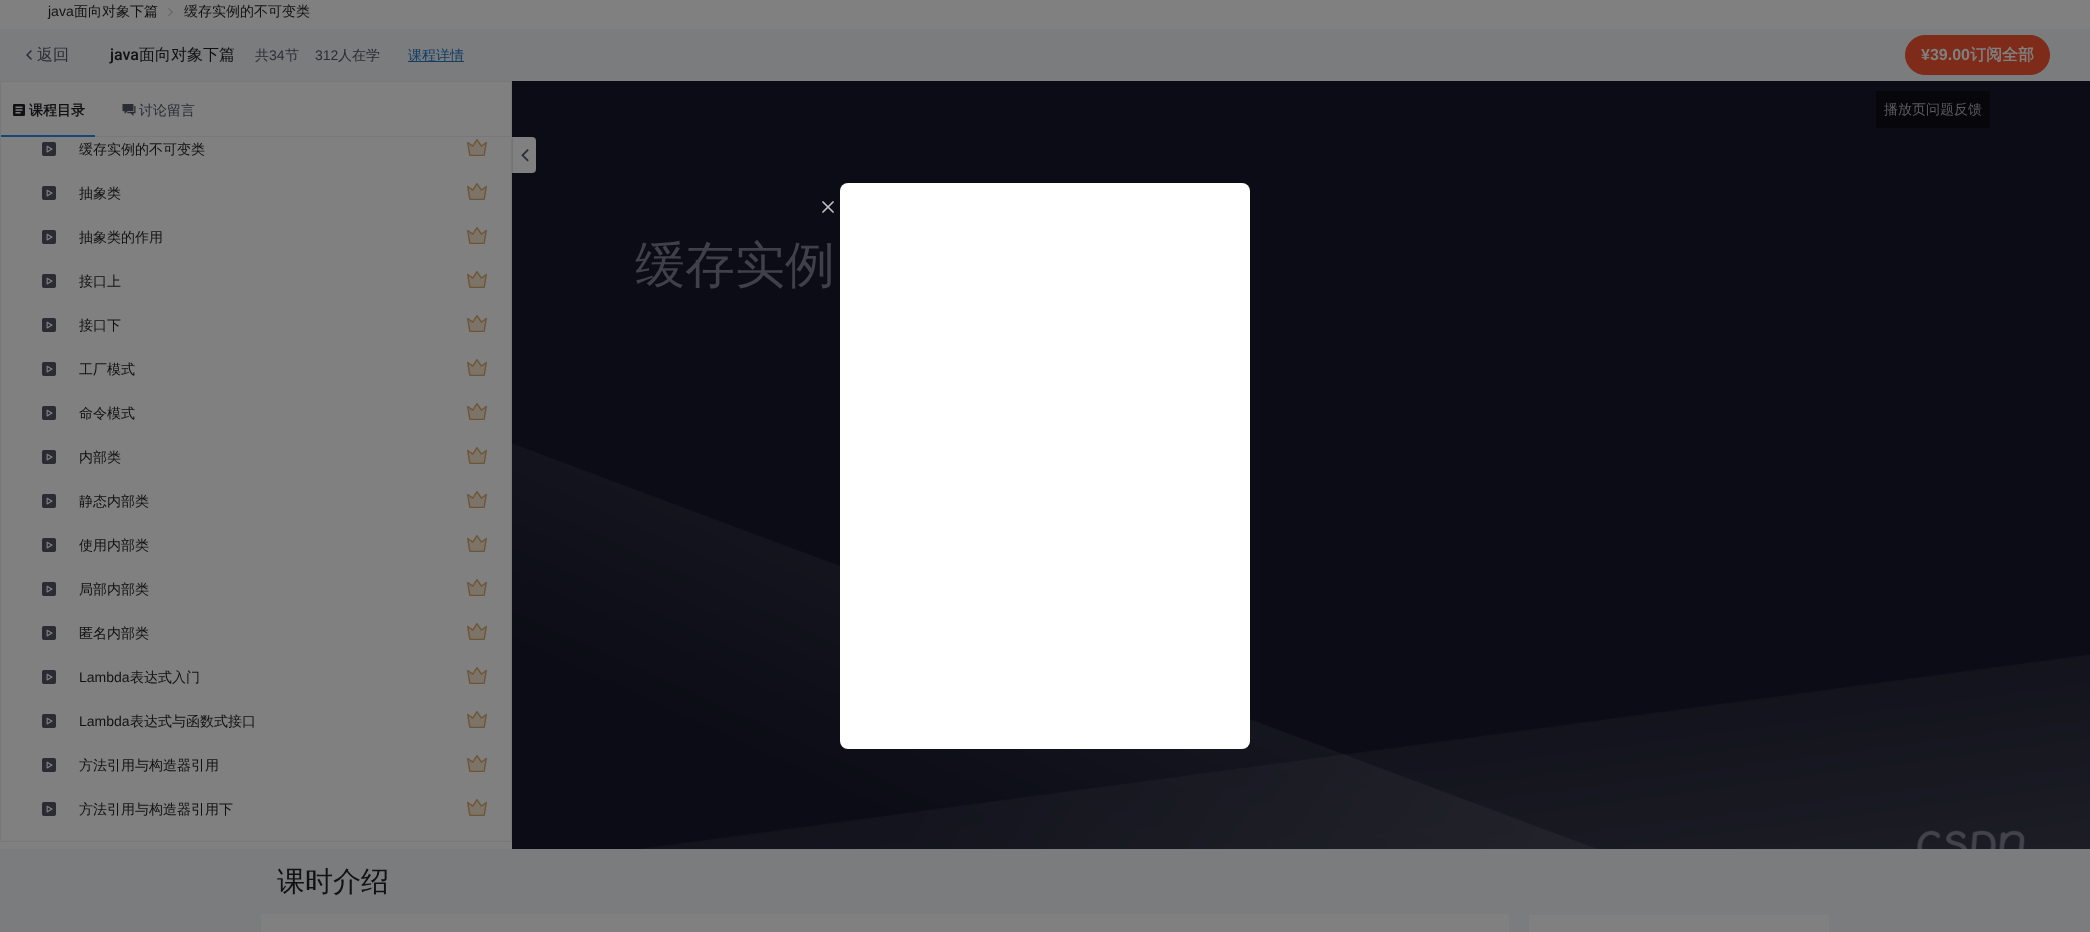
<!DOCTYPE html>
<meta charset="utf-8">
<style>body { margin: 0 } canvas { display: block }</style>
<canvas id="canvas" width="2090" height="932"></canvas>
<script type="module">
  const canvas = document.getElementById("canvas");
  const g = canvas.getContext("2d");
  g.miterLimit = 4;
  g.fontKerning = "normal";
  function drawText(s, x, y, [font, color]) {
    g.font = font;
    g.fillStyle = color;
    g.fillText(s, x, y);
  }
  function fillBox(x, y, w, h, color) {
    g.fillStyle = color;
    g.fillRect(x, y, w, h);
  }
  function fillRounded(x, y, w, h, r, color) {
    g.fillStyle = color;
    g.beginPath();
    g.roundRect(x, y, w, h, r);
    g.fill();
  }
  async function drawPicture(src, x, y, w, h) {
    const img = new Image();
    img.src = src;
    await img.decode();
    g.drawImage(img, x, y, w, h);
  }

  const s1 = ["14px Liberation Sans", "#111113"];
  const s2 = ["500 14px WenQuanYi Zen Hei", "#111113"];
  const s3 = ["500 16px WenQuanYi Zen Hei", "#292D37"];
  const s4 = ["500 16px Roboto", "#111113"];
  const s5 = ["500 16px WenQuanYi Zen Hei", "#111113"];
  const s6 = ["500 14px WenQuanYi Zen Hei", "#292D37"];
  const s7 = ["14px Liberation Sans", "#292D37"];
  const s8 = ["500 14px WenQuanYi Zen Hei", "#143E66"];
  const s9 = ["bold 16px Liberation Sans", "#808080"];
  const s10 = ["bold 16px WenQuanYi Zen Hei", "#808080"];
  const s11 = ["bold 14px WenQuanYi Zen Hei", "#111113"];
  const s12 = ["500 50px WenQuanYi Zen Hei", "#3F4049"];
  const s13 = ["500 14px WenQuanYi Zen Hei", "#5B5B5D"];
  const s14 = ["500 28px WenQuanYi Zen Hei", "#111113"];

  fillBox(0, 0, 2090, 932, "#7B7C7D");
  fillBox(0, 0, 2090, 29, "#808080");
  drawText("java", 48, 16, s1);
  drawText("面向对象下篇", 74, 16, s2);
  g.fillStyle = "#66666C";
  g.beginPath();
  g.moveTo(168.5, 8);
  g.lineTo(173, 12);
  g.lineTo(172, 13);
  g.lineTo(168, 8.5);
  g.closePath();
  g.fill();
  g.beginPath();
  g.moveTo(172, 11.5);
  g.lineTo(173, 12);
  g.lineTo(168.5, 16.5);
  g.lineTo(168, 15.5);
  g.closePath();
  g.fill();
  drawText("缓存实例的不可变类", 184, 16, s2);
  await drawPicture("pic1.png", 26, 50, 6, 10);
  drawText("返回", 37, 60, s3);
  drawText("java", 110, 60, s4);
  drawText("面向对象下篇", 139, 60, s5);
  drawText("共", 255, 60, s6);
  drawText("34", 269, 60, s7);
  drawText("节", 285, 60, s6);
  drawText("312", 315, 60, s7);
  drawText("人在学", 338, 60, s6);
  fillBox(408, 61, 56, 1, "#143E66");
  drawText("课程详情", 408, 60, s8);
  g.fillStyle = "#7E2B19";
  g.beginPath();
  g.roundRect(1905.5, 35.5, 144, 39, 19.5);
  g.fill();
  g.strokeStyle = "#7E2B19";
  g.stroke();
  drawText("¥39.00", 1921, 60, s9);
  drawText("订阅全部", 1970, 60, s10);
  fillBox(0, 82, 512, 767, "#808080");
  g.strokeStyle = "#78787B";
  g.strokeRect(0.5, 81.5, 511, 55);
  await drawPicture("pic2.png", 13, 104, 12, 12);
  drawText("课程目录", 29, 115, s11);
  await drawPicture("pic3.png", 122, 104, 14, 12);
  drawText("讨论留言", 139, 115, s6);
  fillBox(1, 135, 94, 2, "#174678");
  fillBox(511, 138, 1, 704, "#78787B");
  fillBox(0, 841, 512, 1, "#78787B");
  fillBox(0, 138, 1, 704, "#78787B");
  await drawPicture("pic4.png", 42, 142, 14, 14);
  drawText("缓存实例的不可变类", 79, 154, s2);
  await drawPicture("pic5.png", 467, 139, 20, 17);
  await drawPicture("pic4.png", 42, 186, 14, 14);
  drawText("抽象类", 79, 198, s2);
  await drawPicture("pic5.png", 467, 183, 20, 17);
  await drawPicture("pic4.png", 42, 230, 14, 14);
  drawText("抽象类的作用", 79, 242, s2);
  await drawPicture("pic5.png", 467, 227, 20, 17);
  await drawPicture("pic4.png", 42, 274, 14, 14);
  drawText("接口上", 79, 286, s2);
  await drawPicture("pic5.png", 467, 271, 20, 17);
  await drawPicture("pic4.png", 42, 318, 14, 14);
  drawText("接口下", 79, 330, s2);
  await drawPicture("pic5.png", 467, 315, 20, 17);
  await drawPicture("pic4.png", 42, 362, 14, 14);
  drawText("工厂模式", 79, 374, s2);
  await drawPicture("pic5.png", 467, 359, 20, 17);
  await drawPicture("pic4.png", 42, 406, 14, 14);
  drawText("命令模式", 79, 418, s2);
  await drawPicture("pic5.png", 467, 403, 20, 17);
  await drawPicture("pic4.png", 42, 450, 14, 14);
  drawText("内部类", 79, 462, s2);
  await drawPicture("pic5.png", 467, 447, 20, 17);
  await drawPicture("pic4.png", 42, 494, 14, 14);
  drawText("静态内部类", 79, 506, s2);
  await drawPicture("pic5.png", 467, 491, 20, 17);
  await drawPicture("pic4.png", 42, 538, 14, 14);
  drawText("使用内部类", 79, 550, s2);
  await drawPicture("pic5.png", 467, 535, 20, 17);
  await drawPicture("pic4.png", 42, 582, 14, 14);
  drawText("局部内部类", 79, 594, s2);
  await drawPicture("pic5.png", 467, 579, 20, 17);
  await drawPicture("pic4.png", 42, 626, 14, 14);
  drawText("匿名内部类", 79, 638, s2);
  await drawPicture("pic5.png", 467, 623, 20, 17);
  await drawPicture("pic4.png", 42, 670, 14, 14);
  drawText("Lambda", 79, 682, s1);
  drawText("表达式入门", 130, 682, s2);
  await drawPicture("pic5.png", 467, 667, 20, 17);
  await drawPicture("pic4.png", 42, 714, 14, 14);
  drawText("Lambda", 79, 726, s1);
  drawText("表达式与函数式接口", 130, 726, s2);
  await drawPicture("pic5.png", 467, 711, 20, 17);
  await drawPicture("pic4.png", 42, 758, 14, 14);
  drawText("方法引用与构造器引用", 79, 770, s2);
  await drawPicture("pic5.png", 467, 755, 20, 17);
  await drawPicture("pic4.png", 42, 802, 14, 14);
  drawText("方法引用与构造器引用下", 79, 814, s2);
  await drawPicture("pic5.png", 467, 799, 20, 17);
  await drawPicture("pic7.png", 512, 81, 1578, 768);
  g.fillStyle = "#808080";
  g.beginPath();
  g.roundRect(512, 137, 24, 36, [0, 4, 4, 0]);
  g.fill();
  fillBox(512, 137, 1, 36, "#747477");
  await drawPicture("pic6.png", 521, 149, 8, 13);
  drawText("缓存实例", 635, 282, s12);
  fillBox(1876, 91, 114, 37, "#06060B");
  drawText("播放页问题反馈", 1884, 114, s13);
  drawText("课时介绍", 277, 891, s14);
  fillBox(261, 914, 1248, 18, "#808080");
  fillBox(1529, 915, 300, 17, "#808080");
  fillRounded(840, 183, 410, 566, 8, "#FFFFFF");
  await drawPicture("pic8.png", 822, 201, 12, 12);
</script>
